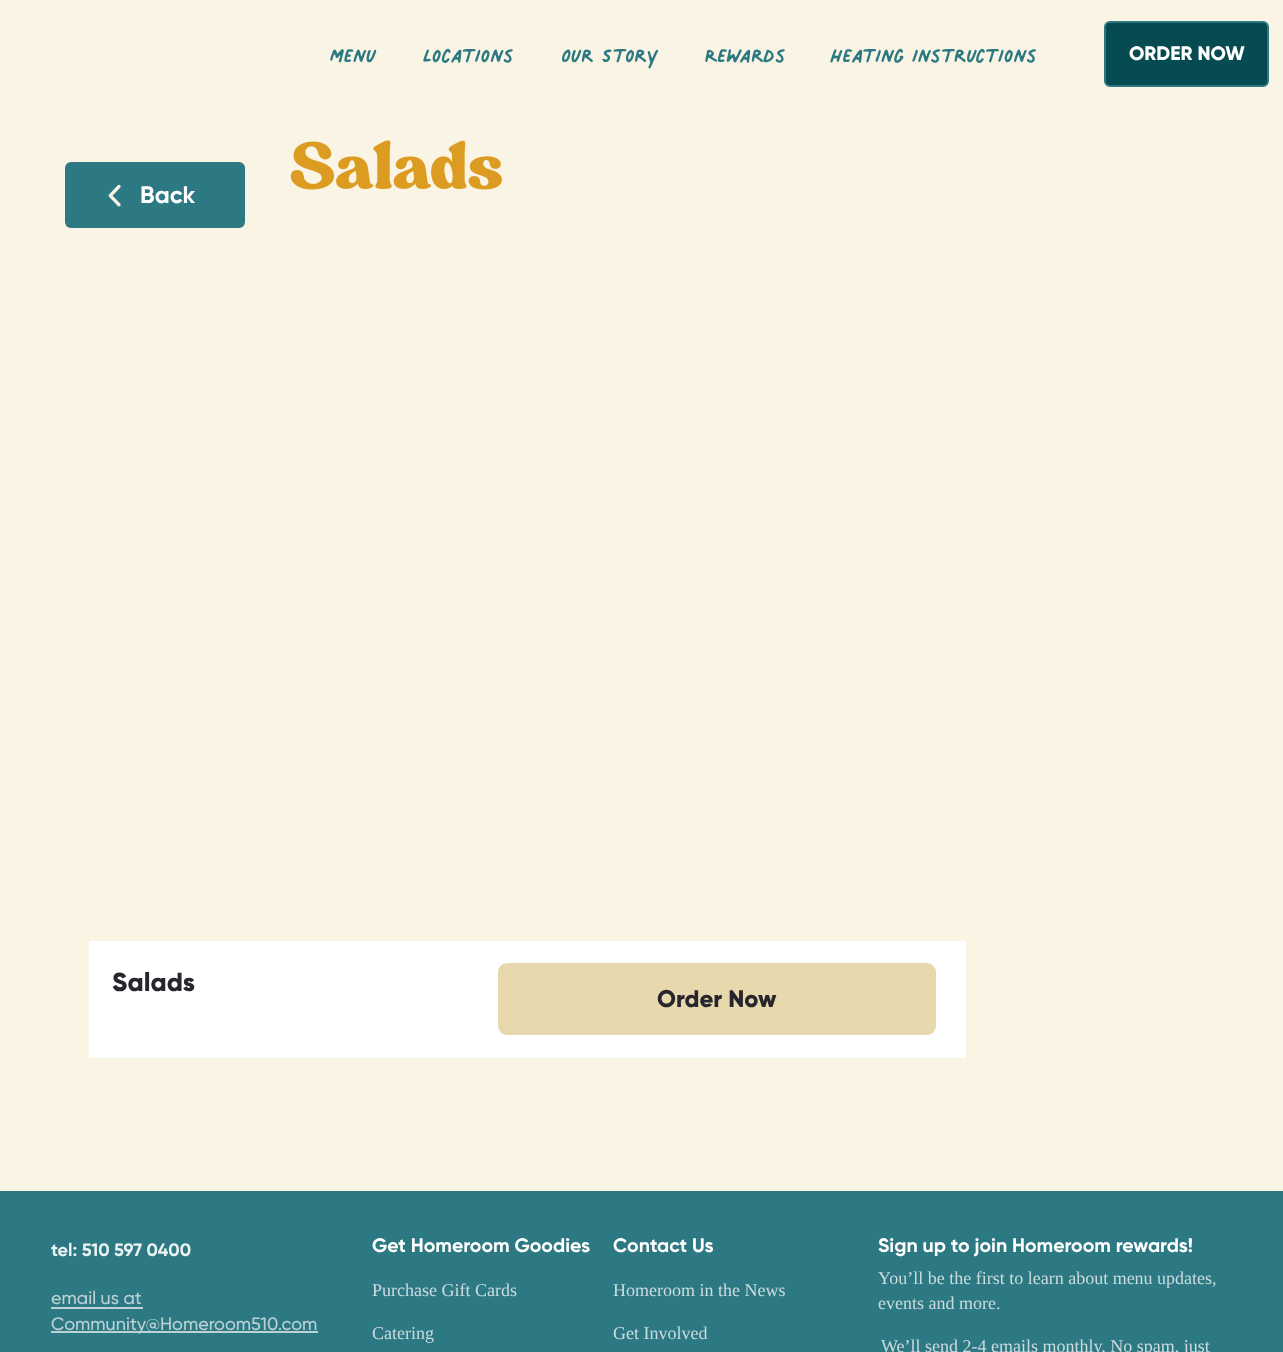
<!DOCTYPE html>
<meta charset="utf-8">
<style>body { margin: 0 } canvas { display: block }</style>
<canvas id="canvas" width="1283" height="1352"></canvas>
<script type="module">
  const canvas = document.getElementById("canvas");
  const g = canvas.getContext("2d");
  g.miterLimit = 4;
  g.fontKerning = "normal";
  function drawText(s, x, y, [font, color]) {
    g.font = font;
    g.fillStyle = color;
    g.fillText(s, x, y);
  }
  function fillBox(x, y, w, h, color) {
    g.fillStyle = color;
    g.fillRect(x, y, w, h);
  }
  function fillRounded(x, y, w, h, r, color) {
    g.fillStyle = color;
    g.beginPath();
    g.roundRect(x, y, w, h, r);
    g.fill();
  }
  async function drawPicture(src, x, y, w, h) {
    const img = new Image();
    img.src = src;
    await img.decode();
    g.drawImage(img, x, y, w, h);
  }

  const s1 = ["40.5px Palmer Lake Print", "#2D7983"];
  const s2 = ["800 19.5px Gilroy", "#FFFFFF"];
  const s3 = ["bold 24px Gilroy", "#FFFFFF"];
  const s4 = ["800 26px Gilroy", "#27262C"];
  const s5 = ["800 24px Gilroy", "#27262C"];
  const s6 = ["bold 18px Gilroy", "#EAF2F2"];
  const s7 = ["500 18px Gilroy", "#BCD2D5"];
  const s8 = ["bold 19.5px Gilroy", "#FFFFFF"];
  const s9 = ["18px Liberation Serif", "#CCDCDE"];

  fillBox(0, 0, 1283, 1352, "#F9F4E4");
  drawText("Menu", 330, 63, s1);
  drawText("Locations", 423, 63, s1);
  drawText("Our Story", 561, 63, s1);
  drawText("Rewards", 705, 63, s1);
  drawText("Heating Instructions", 830, 63, s1);
  g.fillStyle = "#064B52";
  g.beginPath();
  g.roundRect(1105, 22, 163, 64, 5);
  g.fill();
  g.strokeStyle = "#2D7983";
  g.lineWidth = 2;
  g.stroke();
  drawText("ORDER NOW", 1129, 60, s2);
  await drawPicture("pic1.png", 290, 140, 212, 50);
  fillRounded(65, 162, 180, 66, 6, "#2D7983");
  await drawPicture("pic2.png", 108, 184, 13, 23);
  drawText("Back", 140, 203, s3);
  fillBox(89, 941, 877, 117, "#FFFFFF");
  drawText("Salads", 112, 991, s4);
  fillRounded(498, 963, 438, 72, 9, "#E8D8AD");
  drawText("Order Now", 657, 1007, s5);
  fillBox(0, 1191, 1283, 161, "#2D7983");
  drawText("tel: 510 597 0400", 51, 1256, s6);
  drawText("email us at", 51, 1304, s7);
  fillBox(51, 1307, 92, 2, "#BCD2D5");
  fillBox(51, 1331, 267, 2, "#BCD2D5");
  drawText("Community@Homeroom510.com", 51, 1330, s7);
  drawText("Get Homeroom Goodies", 372, 1252, s8);
  drawText("Purchase Gift Cards", 372, 1296, s9);
  drawText("Catering", 372, 1339, s9);
  drawText("Contact Us", 613, 1252, s8);
  drawText("Homeroom in the News", 613, 1296, s9);
  drawText("Get Involved", 613, 1339, s9);
  drawText("Sign up to join Homeroom rewards!", 878, 1252, s8);
  drawText("You’ll be the first to learn about menu updates,", 878, 1284, s9);
  drawText("events and more.", 878, 1309, s9);
  drawText("We’ll send 2-4 emails monthly. No spam, just", 881, 1352, s9);
</script>
